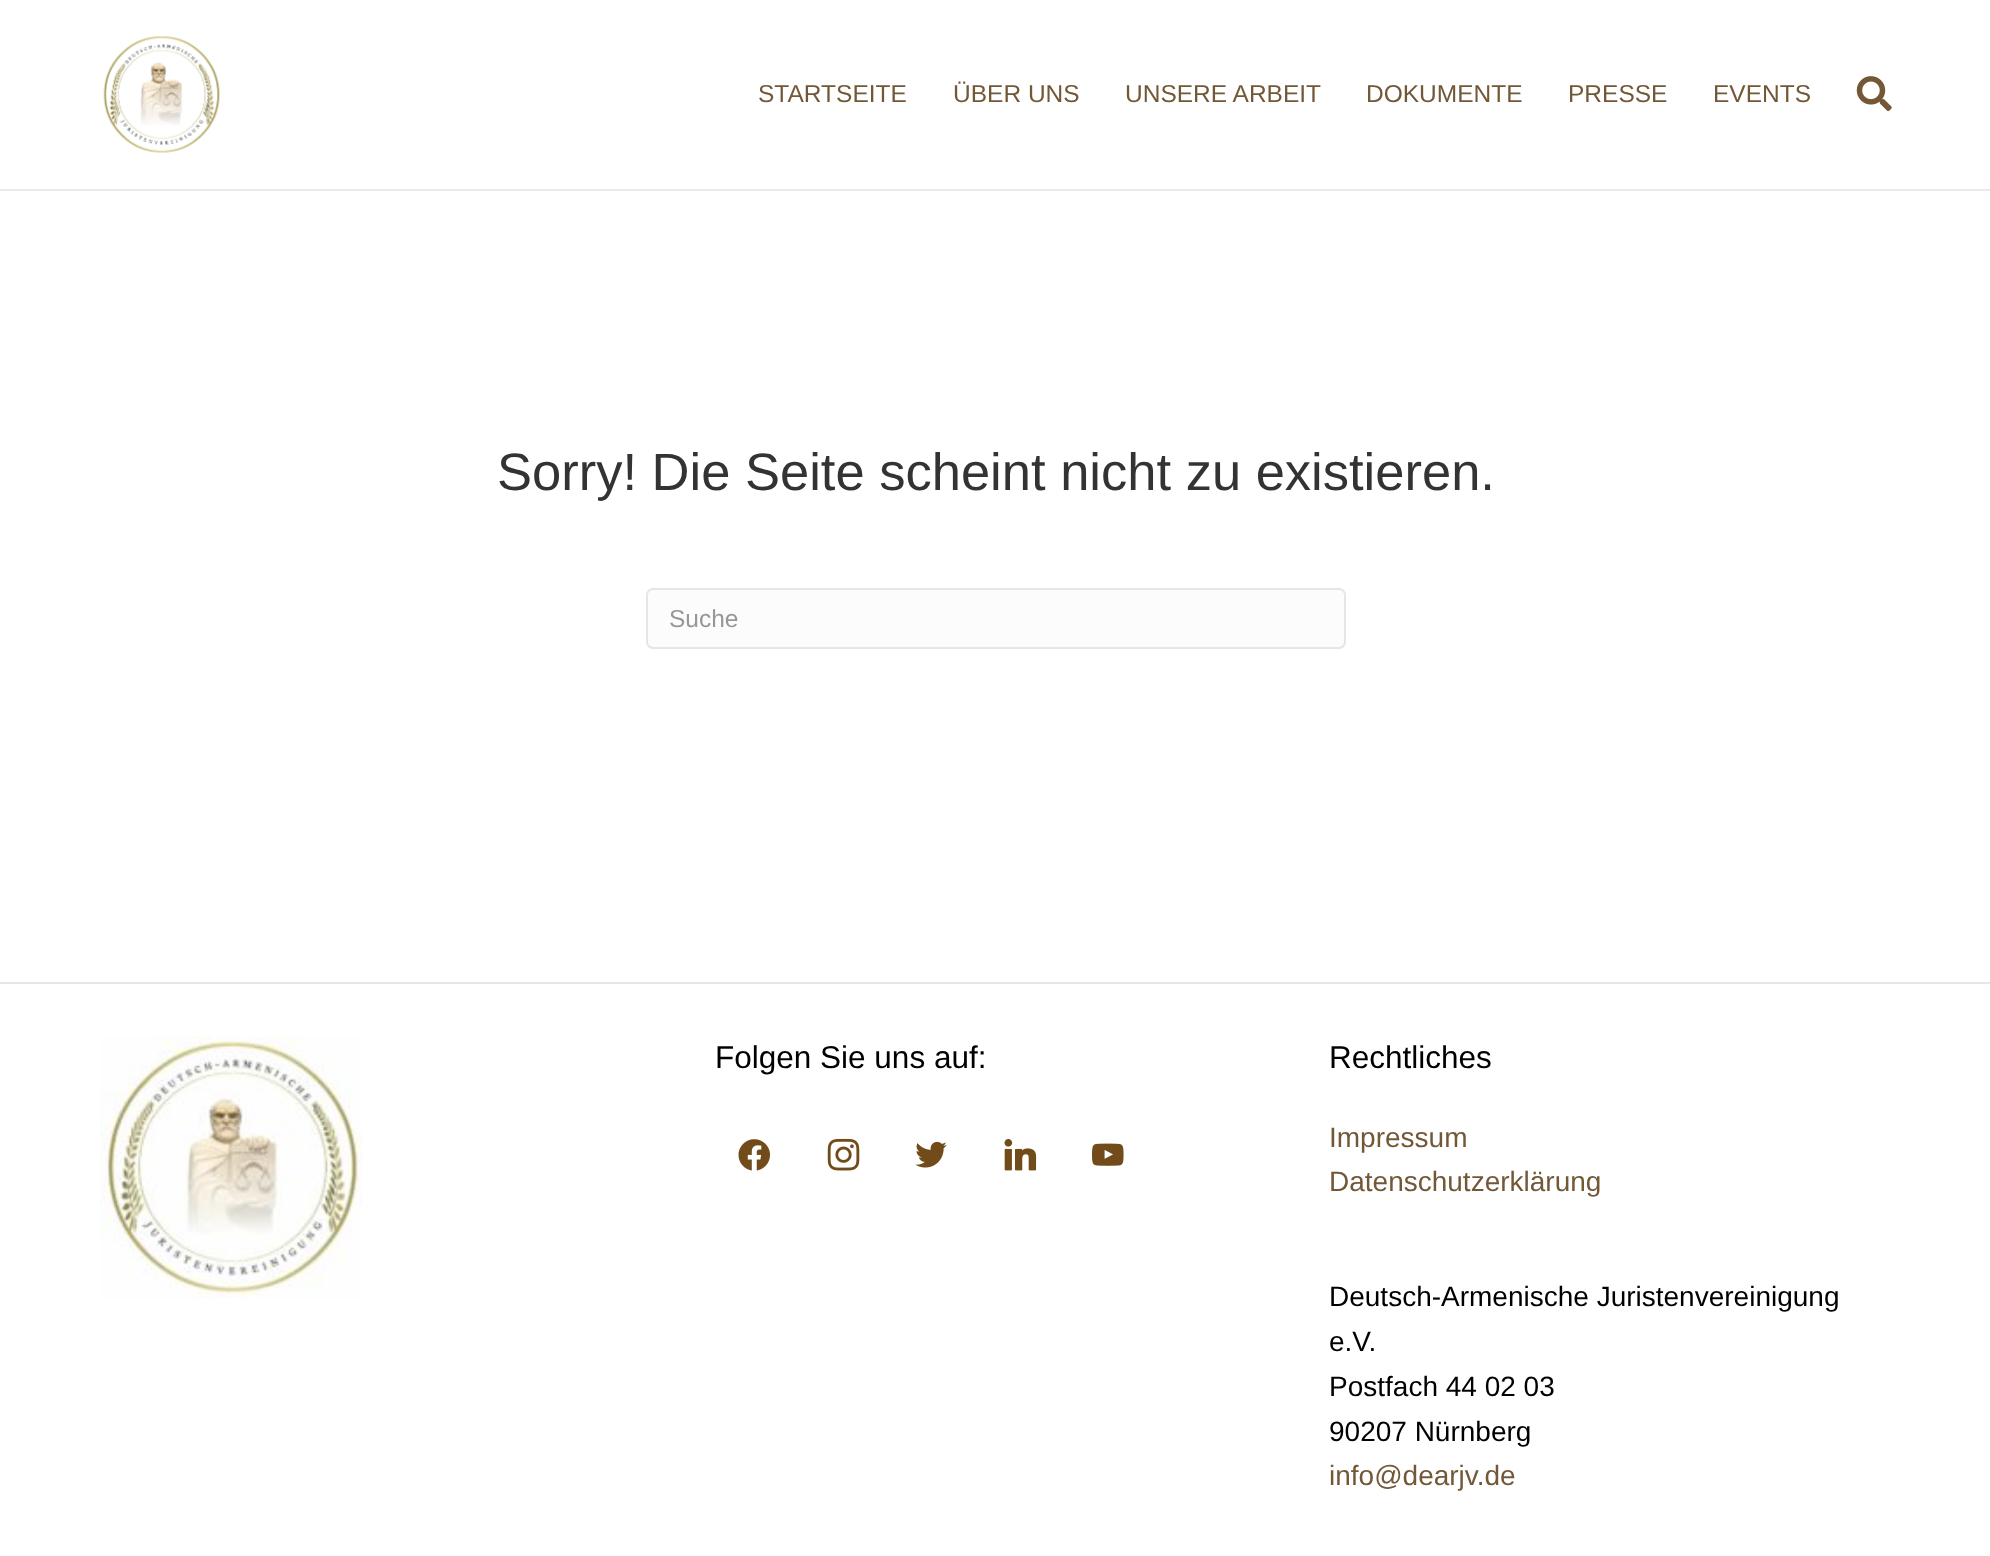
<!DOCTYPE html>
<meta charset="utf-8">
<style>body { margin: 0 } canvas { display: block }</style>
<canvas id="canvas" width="1990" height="1556"></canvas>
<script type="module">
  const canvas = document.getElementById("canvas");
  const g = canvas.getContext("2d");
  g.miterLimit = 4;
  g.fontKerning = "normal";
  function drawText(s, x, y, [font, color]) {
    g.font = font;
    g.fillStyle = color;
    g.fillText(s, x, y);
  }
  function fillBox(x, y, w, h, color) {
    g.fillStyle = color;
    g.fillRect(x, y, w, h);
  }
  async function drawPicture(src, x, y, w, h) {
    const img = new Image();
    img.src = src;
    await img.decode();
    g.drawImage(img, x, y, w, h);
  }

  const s1 = ["24.5px Liberation Sans", "#735838"];
  const s2 = ["52.5px Liberation Sans", "#333333"];
  const s3 = ["24.5px Liberation Sans", "#979797"];
  const s4 = ["31.5px Liberation Sans", "#000000"];
  const s5 = ["28px Liberation Sans", "#735838"];
  const s6 = ["28px Liberation Sans", "#000000"];

  fillBox(0, 0, 1990, 1556, "#FFFFFF");
  fillBox(0, 189, 1990, 2, "#EDE9E5");
  await drawPicture("pic1.png", 103, 35, 117, 118);
  drawText("STARTSEITE", 758, 102, s1);
  drawText("ÜBER UNS", 953, 102, s1);
  drawText("UNSERE ARBEIT", 1125, 102, s1);
  drawText("DOKUMENTE", 1366, 102, s1);
  drawText("PRESSE", 1568, 102, s1);
  drawText("EVENTS", 1713, 102, s1);
  await drawPicture("pic2.png", 1856, 76, 36, 36);
  drawText("Sorry! Die Seite scheint nicht zu existieren.", 497, 490, s2);
  g.fillStyle = "#FCFCFC";
  g.beginPath();
  g.roundRect(647, 589, 698, 59, 6);
  g.fill();
  g.strokeStyle = "#E6E6E6";
  g.lineWidth = 2;
  g.stroke();
  drawText("Suche", 669, 627, s3);
  fillBox(0, 982, 1990, 2, "#E6E6E6");
  await drawPicture("pic3.png", 100, 1036, 262, 263);
  drawText("Folgen Sie uns auf:", 715, 1068, s4);
  await drawPicture("pic4.png", 738, 1139, 32, 32);
  await drawPicture("pic5.png", 827, 1138, 33, 33);
  await drawPicture("pic6.png", 915, 1141, 32, 27);
  await drawPicture("pic7.png", 1004, 1139, 33, 32);
  await drawPicture("pic8.png", 1092, 1143, 32, 23);
  drawText("Rechtliches", 1329, 1068, s4);
  drawText("Impressum", 1329, 1147, s5);
  drawText("Datenschutzerklärung", 1329, 1191, s5);
  drawText("Deutsch-Armenische Juristenvereinigung", 1329, 1306, s6);
  drawText("e.V.", 1329, 1351, s6);
  drawText("Postfach 44 02 03", 1329, 1396, s6);
  drawText("90207 Nürnberg", 1329, 1441, s6);
  drawText("info@dearjv.de", 1329, 1485, s5);
</script>
